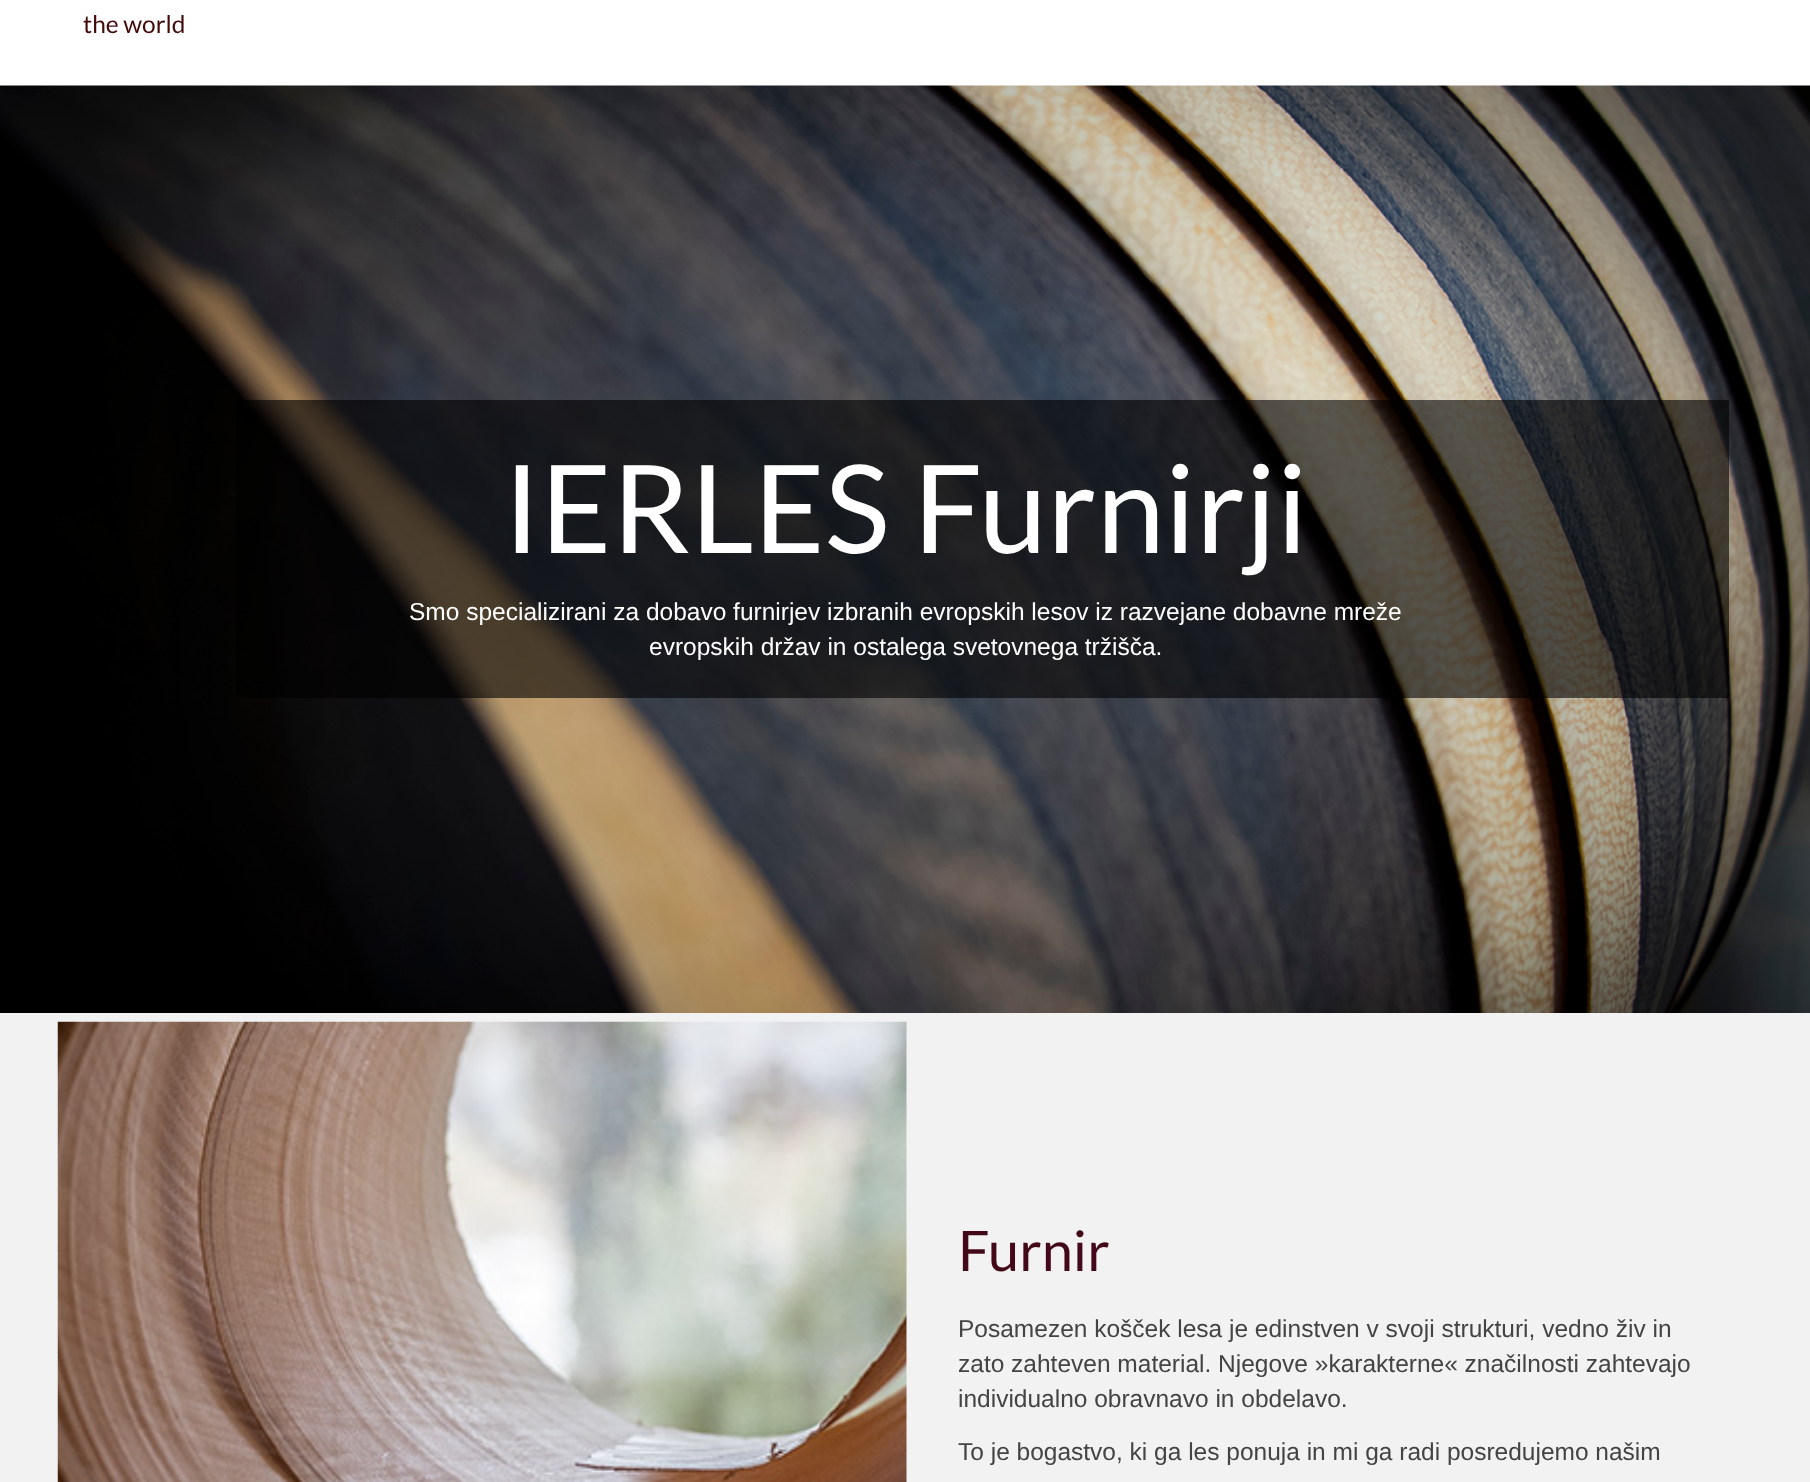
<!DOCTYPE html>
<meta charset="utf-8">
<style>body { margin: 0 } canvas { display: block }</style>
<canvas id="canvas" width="1810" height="1482"></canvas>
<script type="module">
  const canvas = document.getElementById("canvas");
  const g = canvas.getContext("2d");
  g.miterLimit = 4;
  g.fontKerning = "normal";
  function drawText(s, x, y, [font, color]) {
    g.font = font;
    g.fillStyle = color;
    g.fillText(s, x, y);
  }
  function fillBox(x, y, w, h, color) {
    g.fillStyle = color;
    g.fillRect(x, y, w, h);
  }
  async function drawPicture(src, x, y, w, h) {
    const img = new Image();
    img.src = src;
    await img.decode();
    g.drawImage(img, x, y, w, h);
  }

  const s1 = ["24.5px Lato", "#440B0B"];
  const s2 = ["122.5px Lato", "#FFFFFF"];
  const s3 = ["24.5px Liberation Sans", "#FFFFFF"];
  const s4 = ["56px Lato", "#440919"];
  const s5 = ["24.5px Liberation Sans", "#444444"];

  fillBox(0, 0, 1810, 1482, "#FFFFFF");
  drawText("the world", 83, 33, s1);
  await drawPicture("pic1.png", 0, 85, 1810, 928);
  fillBox(236, 400, 1493, 298, "rgba(0, 0, 0, 0.6)");
  drawText("IERLES Furnirji", 503, 553, s2);
  drawText("Smo specializirani za dobavo furnirjev izbranih evropskih lesov iz razvejane dobavne mreže", 409, 620, s3);
  drawText("evropskih držav in ostalega svetovnega tržišča.", 649, 655, s3);
  fillBox(0, 1013, 1810, 469, "#F2F2F2");
  await drawPicture("pic2.png", 57, 1021, 850, 461);
  drawText("Furnir", 958, 1271, s4);
  drawText("Posamezen košček lesa je edinstven v svoji strukturi, vedno živ in", 958, 1337, s5);
  drawText("zato zahteven material. Njegove »karakterne« značilnosti zahtevajo", 958, 1372, s5);
  drawText("individualno obravnavo in obdelavo.", 958, 1407, s5);
  drawText("To je bogastvo, ki ga les ponuja in mi ga radi posredujemo našim", 958, 1460, s5);
</script>
